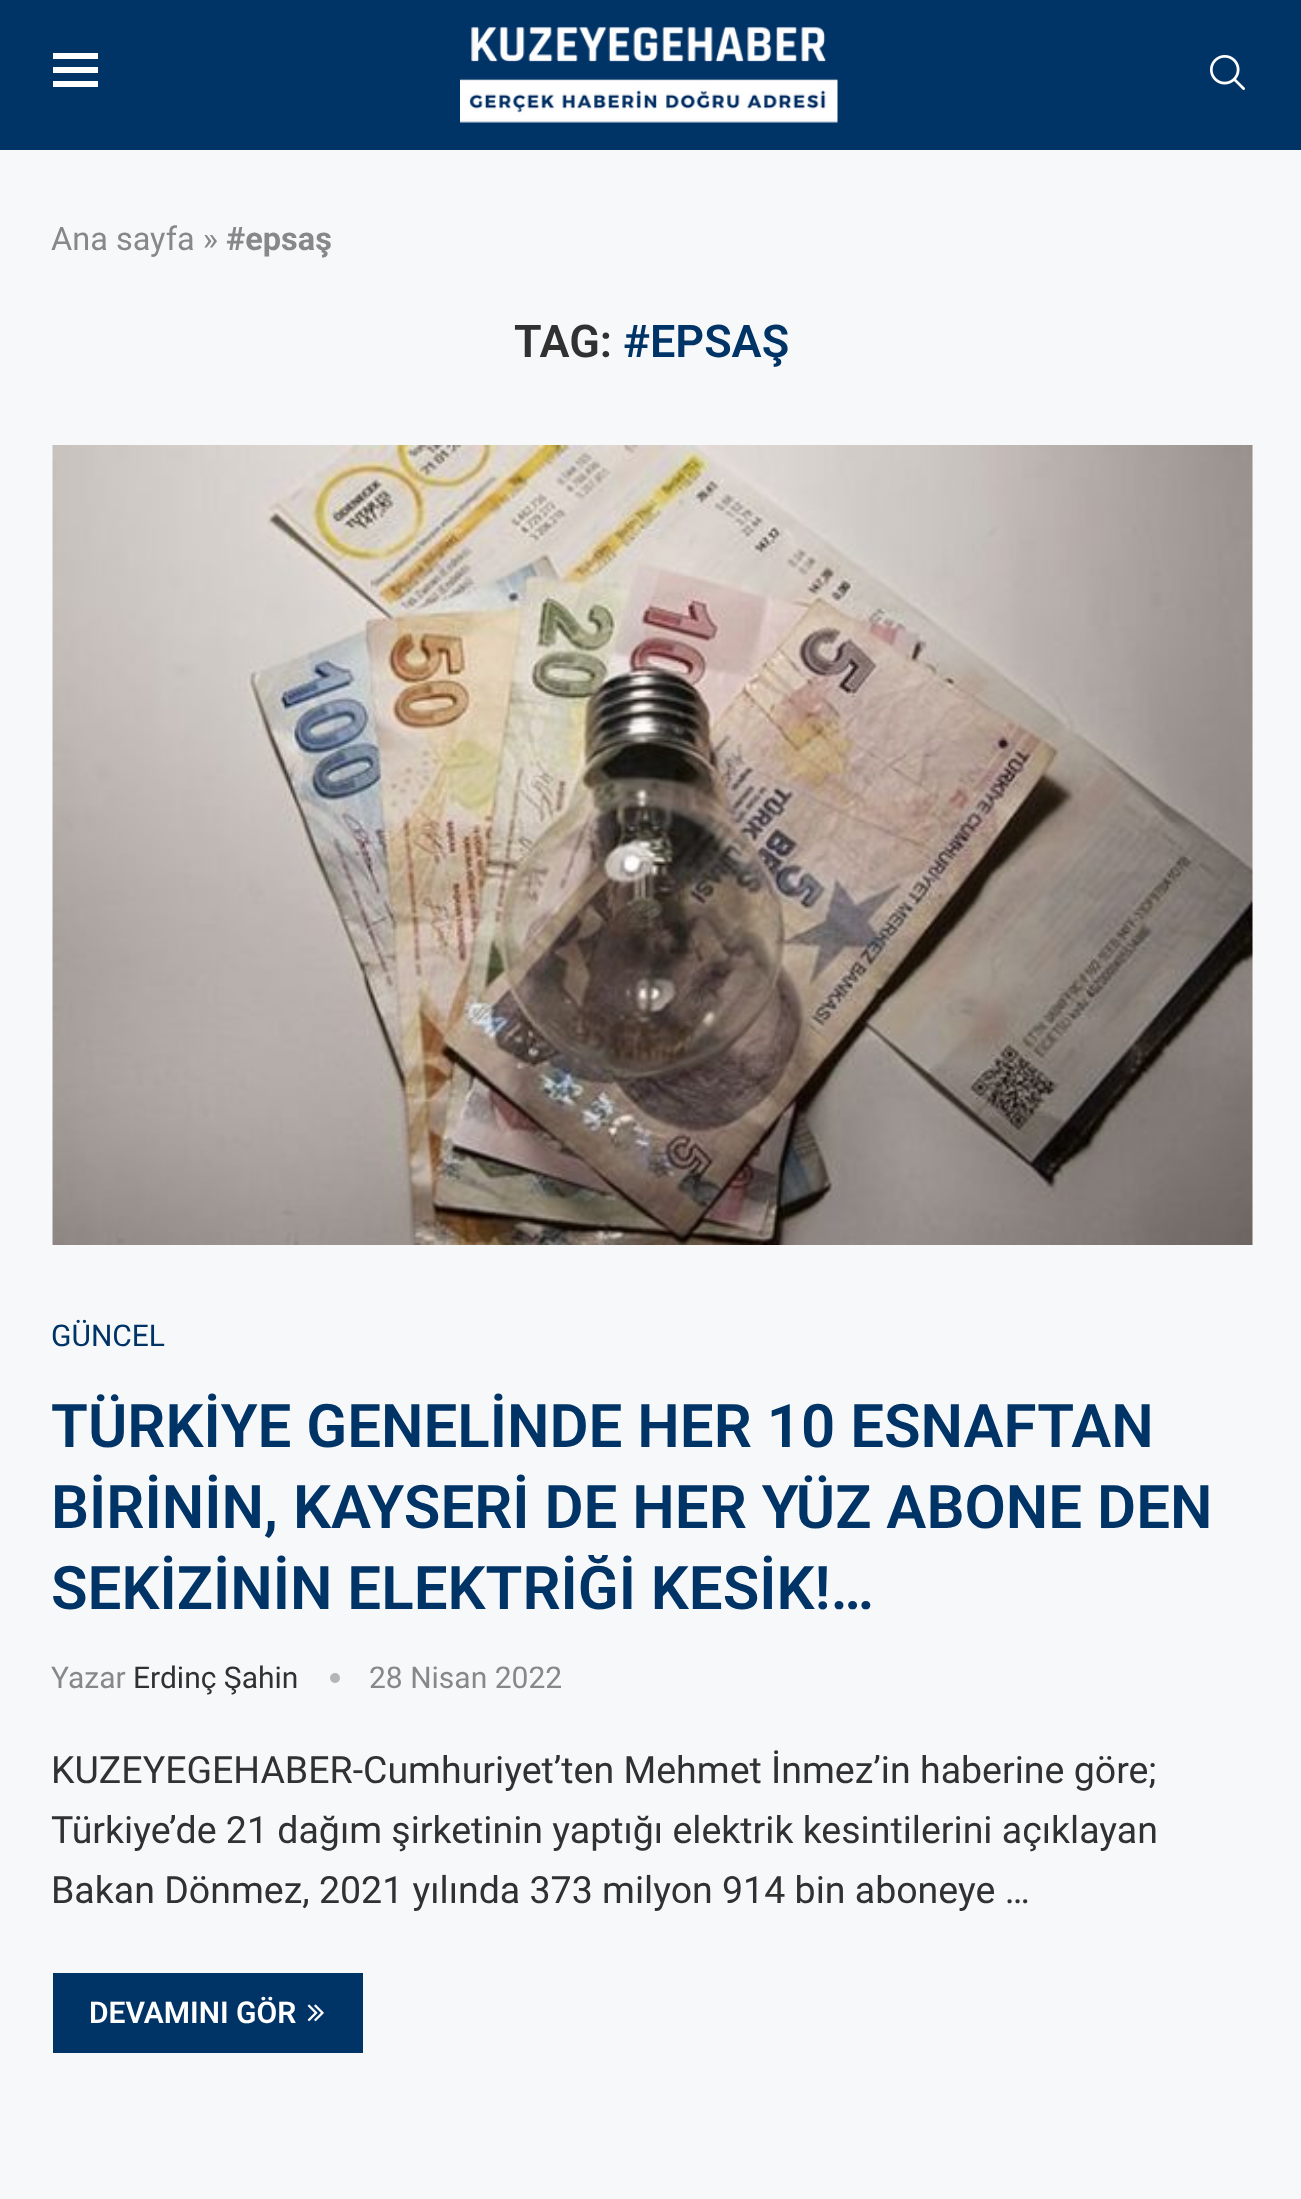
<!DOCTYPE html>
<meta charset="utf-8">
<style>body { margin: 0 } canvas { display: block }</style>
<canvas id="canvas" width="1301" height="2199"></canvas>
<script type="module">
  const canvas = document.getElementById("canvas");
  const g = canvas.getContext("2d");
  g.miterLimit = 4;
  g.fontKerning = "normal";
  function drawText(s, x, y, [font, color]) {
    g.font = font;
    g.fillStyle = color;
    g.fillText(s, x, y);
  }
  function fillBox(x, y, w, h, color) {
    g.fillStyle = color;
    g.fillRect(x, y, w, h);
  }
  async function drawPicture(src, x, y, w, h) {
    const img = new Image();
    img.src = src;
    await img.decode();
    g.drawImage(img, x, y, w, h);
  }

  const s1 = ["32.5px Roboto", "#888888"];
  const s2 = ["bold 32.5px Roboto", "#888888"];
  const s3 = ["600 45px Roboto", "#313131"];
  const s4 = ["600 45px Roboto", "#003366"];
  const s5 = ["30px Roboto", "#003366"];
  const s6 = ["600 60px Roboto", "#003366"];
  const s7 = ["30px Roboto", "#888888"];
  const s8 = ["30px Roboto", "#313131"];
  const s9 = ["37.5px Roboto", "#313131"];
  const s10 = ["600 30px Roboto", "#FFFFFF"];

  fillBox(0, 0, 1301, 2199, "#F6F8FA");
  fillBox(0, 0, 1301, 150, "#003366");
  fillBox(53, 53, 45, 6, "#FFFFFF");
  fillBox(53, 67, 45, 6, "#FFFFFF");
  fillBox(53, 81, 45, 6, "#FFFFFF");
  await drawPicture("pic1.png", 460, 26, 378, 97);
  await drawPicture("pic2.png", 1210, 55, 35, 35);
  drawText("Ana sayfa »", 51, 250, s1);
  drawText("#epsaş", 226, 250, s2);
  drawText("TAG:", 514, 357, s3);
  drawText("#EPSAŞ", 623, 357, s4);
  fillBox(1252, 445, 1, 800, "#F5F5F5");
  await drawPicture("pic3.png", 52, 445, 1201, 800);
  drawText("GÜNCEL", 51, 1346, s5);
  drawText("TÜRKİYE GENELİNDE HER 10 ESNAFTAN", 51, 1447, s6);
  drawText("BİRİNİN, KAYSERİ DE HER YÜZ ABONE DEN", 51, 1528, s6);
  drawText("SEKİZİNİN ELEKTRİĞİ KESİK!…", 51, 1609, s6);
  drawText("Yazar", 51, 1688, s7);
  drawText("Erdinç Şahin", 133, 1688, s8);
  g.fillStyle = "#B4B5B6";
  g.beginPath();
  g.arc(335, 1678, 5, 0, Math.PI * 2);
  g.fill();
  drawText("28 Nisan 2022", 369, 1688, s7);
  drawText("KUZEYEGEHABER-Cumhuriyet’ten Mehmet İnmez’in haberine göre;", 51, 1783, s9);
  drawText("Türkiye’de 21 dağım şirketinin yaptığı elektrik kesintilerini açıklayan", 51, 1843, s9);
  drawText("Bakan Dönmez, 2021 yılında 373 milyon 914 bin aboneye …", 51, 1903, s9);
  fillBox(53, 1973, 310, 80, "#003366");
  drawText("DEVAMINI GÖR", 89, 2023, s10);
  await drawPicture("pic4.png", 307, 2004, 17, 18);
</script>
